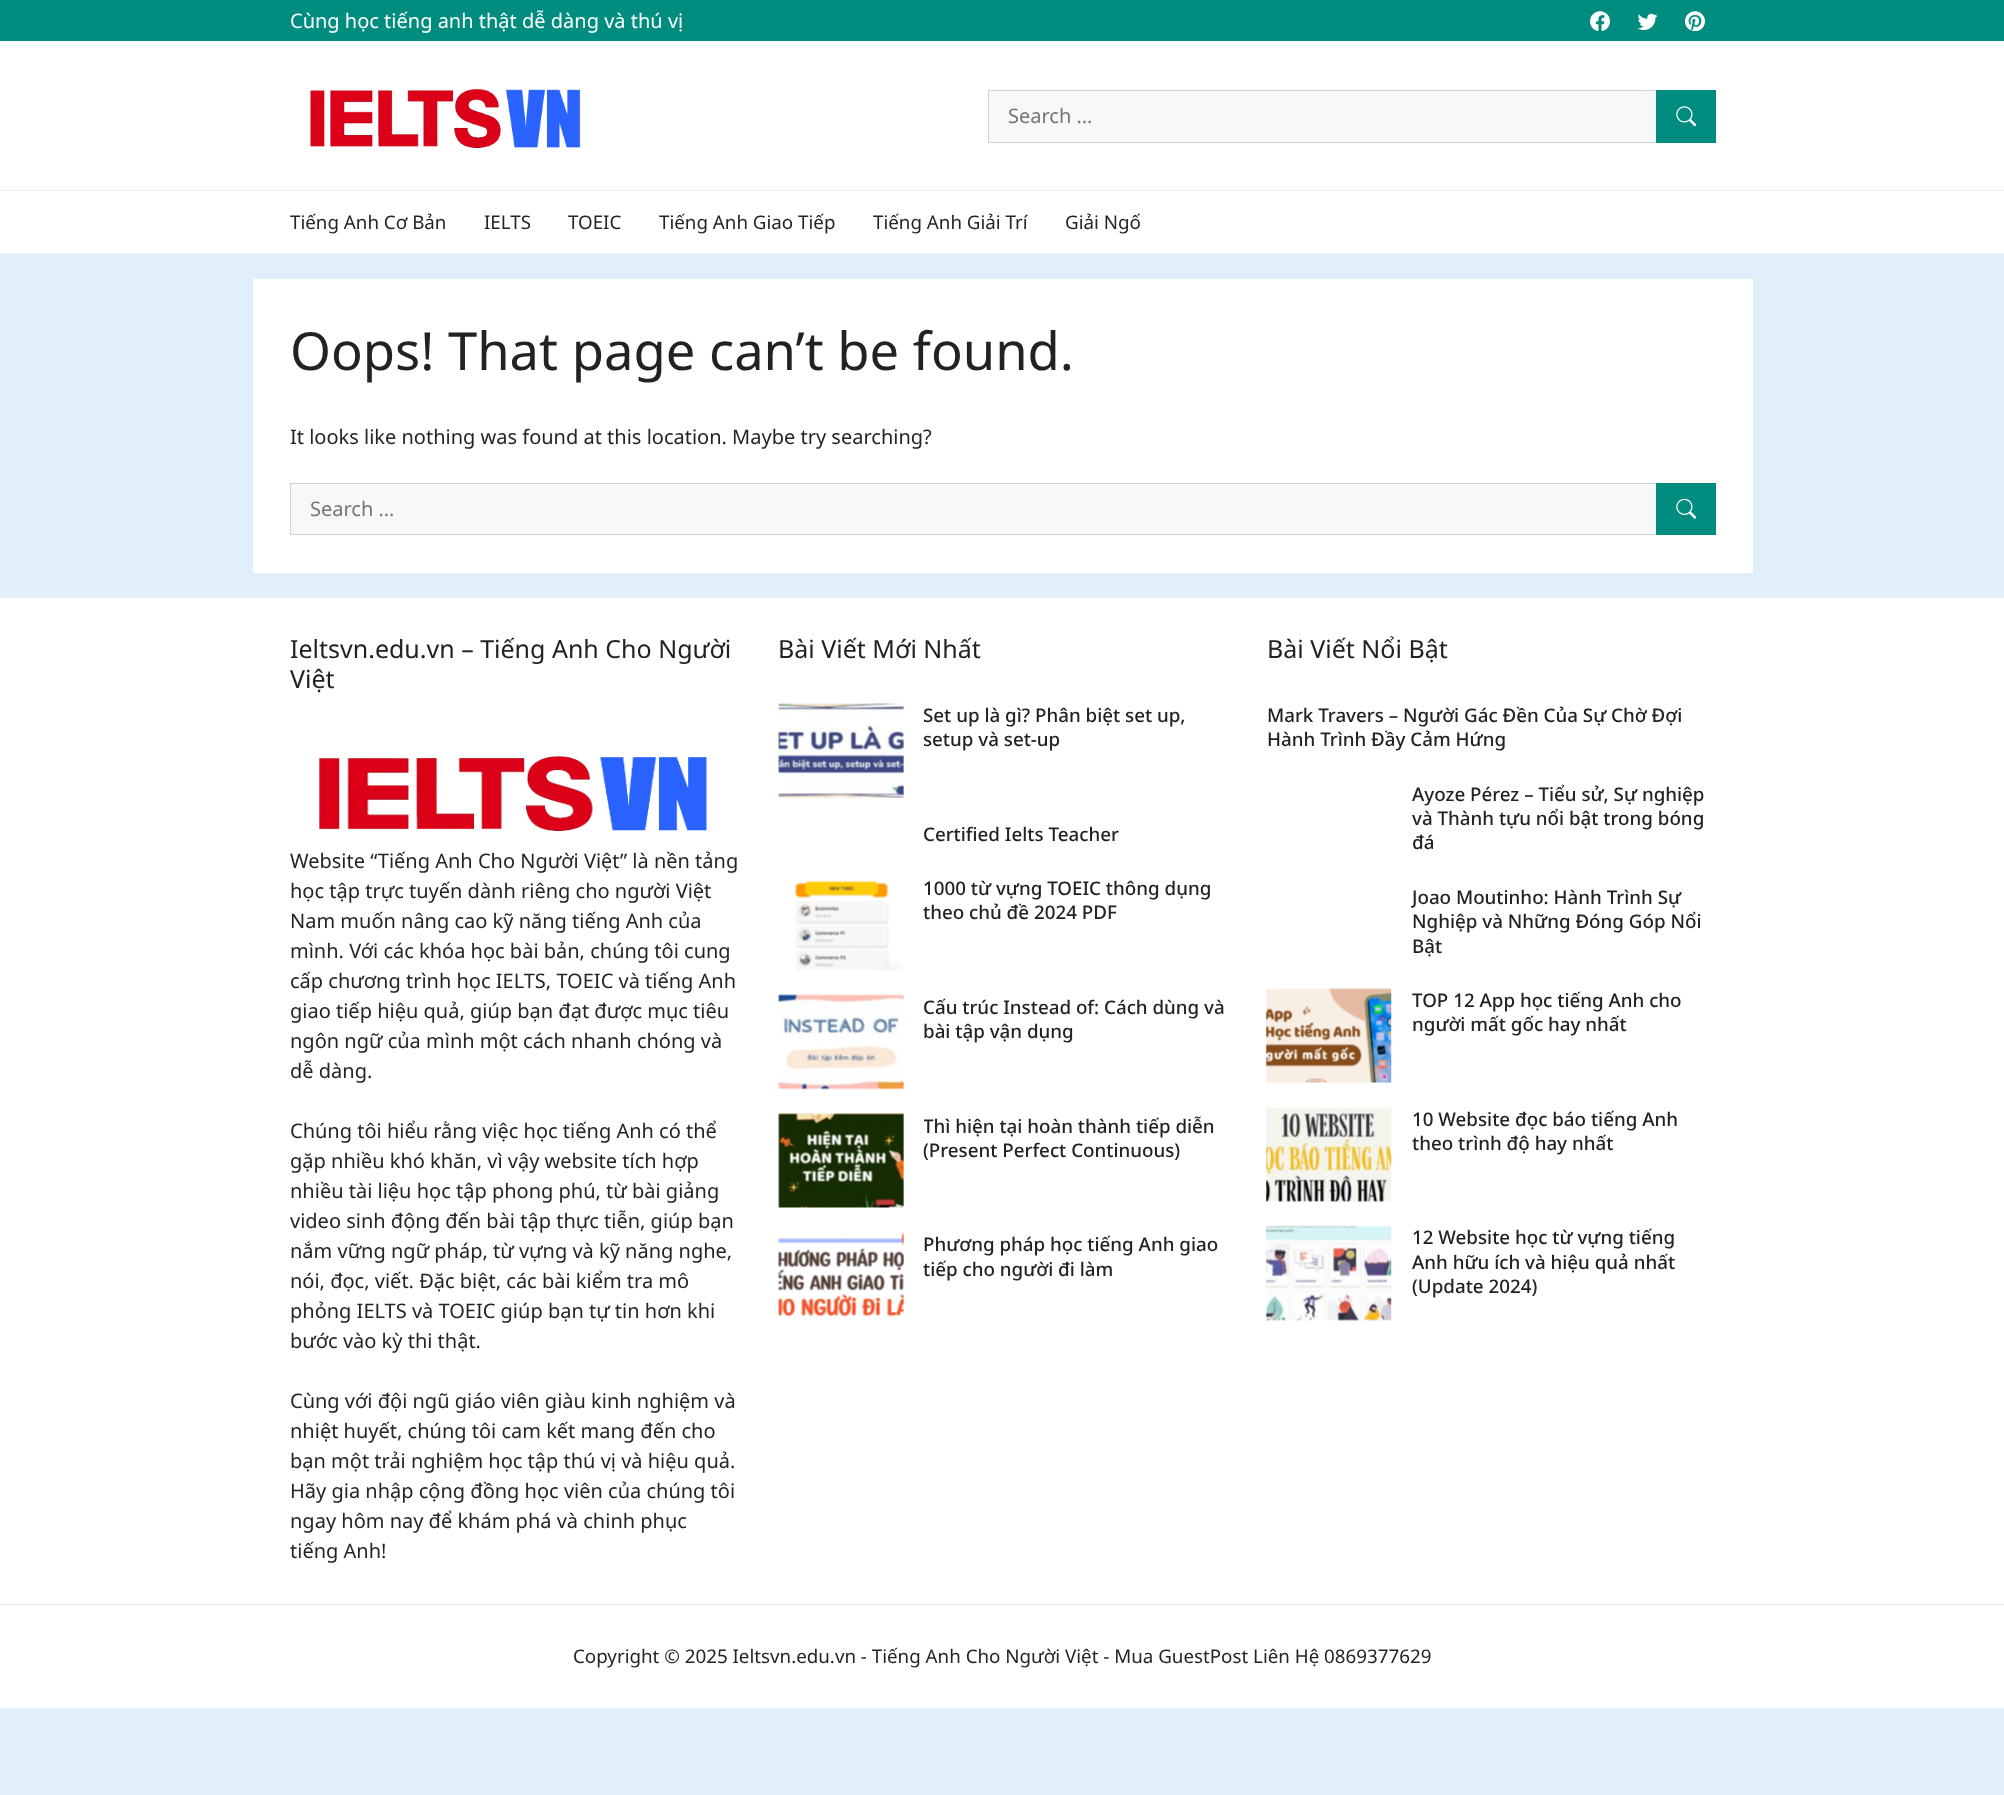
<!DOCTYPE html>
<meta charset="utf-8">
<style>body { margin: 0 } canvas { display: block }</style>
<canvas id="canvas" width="2004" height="1795"></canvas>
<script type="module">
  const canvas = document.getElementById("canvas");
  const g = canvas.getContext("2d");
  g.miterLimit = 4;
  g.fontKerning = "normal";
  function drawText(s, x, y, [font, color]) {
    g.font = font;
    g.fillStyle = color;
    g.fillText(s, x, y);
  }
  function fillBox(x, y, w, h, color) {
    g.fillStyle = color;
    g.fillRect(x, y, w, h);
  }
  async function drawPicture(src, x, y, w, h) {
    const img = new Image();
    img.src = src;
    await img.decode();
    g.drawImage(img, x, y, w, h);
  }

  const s1 = ["20px Noto Sans", "#FFFFFF"];
  const s2 = ["20px Noto Sans", "#757575"];
  const s3 = ["18.75px Noto Sans", "#212529"];
  const s4 = ["52.5px Noto Sans", "#222222"];
  const s5 = ["20px Noto Sans", "#212529"];
  const s6 = ["25px Noto Sans", "#222222"];
  const s7 = ["500 18.75px Noto Sans", "#222222"];

  fillBox(0, 0, 2004, 1795, "#E0EFF9");
  fillBox(0, 41, 2004, 212, "#FFFFFF");
  fillBox(0, 0, 2004, 41, "#008D7F");
  drawText("Cùng học tiếng anh thật dễ dàng và thú vị", 290, 28, s1);
  await drawPicture("pic1.png", 1590, 11, 20, 20);
  await drawPicture("pic2.png", 1638, 13, 20, 17);
  await drawPicture("pic3.png", 1685, 11, 20, 20);
  fillBox(0, 190, 2004, 1, "#EFEFEF");
  await drawPicture("pic4.png", 310, 89, 271, 60);
  fillBox(989, 91, 667, 51, "#F7F8F9");
  g.strokeStyle = "#CED4DA";
  g.strokeRect(988.5, 90.5, 726, 52);
  drawText("Search …", 1008, 123, s2);
  fillBox(1656, 90, 60, 53, "#008D7F");
  await drawPicture("pic5.png", 1676, 106, 20, 20);
  fillBox(0, 253, 2004, 1, "#F2F2F2");
  drawText("Tiếng Anh Cơ Bản", 290, 229, s3);
  drawText("IELTS", 484, 229, s3);
  drawText("TOEIC", 568, 229, s3);
  drawText("Tiếng Anh Giao Tiếp", 659, 229, s3);
  drawText("Tiếng Anh Giải Trí", 873, 229, s3);
  drawText("Giải Ngố", 1065, 229, s3);
  fillBox(253, 279, 1500, 294, "#FFFFFF");
  drawText("Oops! That page can’t be found.", 290, 370, s4);
  drawText("It looks like nothing was found at this location. Maybe try searching?", 290, 444, s5);
  fillBox(291, 484, 1365, 50, "#F7F8F9");
  g.strokeRect(290.5, 483.5, 1424, 51);
  drawText("Search …", 310, 516, s2);
  fillBox(1656, 483, 60, 52, "#008D7F");
  await drawPicture("pic6.png", 1676, 499, 20, 20);
  fillBox(0, 598, 2004, 1006, "#FFFFFF");
  drawText("Ieltsvn.edu.vn – Tiếng Anh Cho Người", 290, 658, s6);
  drawText("Việt", 290, 688, s6);
  await drawPicture("pic7.png", 319, 756, 389, 76);
  drawText("Website “Tiếng Anh Cho Người Việt” là nền tảng", 290, 868, s5);
  drawText("học tập trực tuyến dành riêng cho người Việt", 290, 898, s5);
  drawText("Nam muốn nâng cao kỹ năng tiếng Anh của", 290, 928, s5);
  drawText("mình. Với các khóa học bài bản, chúng tôi cung", 290, 958, s5);
  drawText("cấp chương trình học IELTS, TOEIC và tiếng Anh", 290, 988, s5);
  drawText("giao tiếp hiệu quả, giúp bạn đạt được mục tiêu", 290, 1018, s5);
  drawText("ngôn ngữ của mình một cách nhanh chóng và", 290, 1048, s5);
  drawText("dễ dàng.", 290, 1078, s5);
  drawText("Chúng tôi hiểu rằng việc học tiếng Anh có thể", 290, 1138, s5);
  drawText("gặp nhiều khó khăn, vì vậy website tích hợp", 290, 1168, s5);
  drawText("nhiều tài liệu học tập phong phú, từ bài giảng", 290, 1198, s5);
  drawText("video sinh động đến bài tập thực tiễn, giúp bạn", 290, 1228, s5);
  drawText("nắm vững ngữ pháp, từ vựng và kỹ năng nghe,", 290, 1258, s5);
  drawText("nói, đọc, viết. Đặc biệt, các bài kiểm tra mô", 290, 1288, s5);
  drawText("phỏng IELTS và TOEIC giúp bạn tự tin hơn khi", 290, 1318, s5);
  drawText("bước vào kỳ thi thật.", 290, 1348, s5);
  drawText("Cùng với đội ngũ giáo viên giàu kinh nghiệm và", 290, 1408, s5);
  drawText("nhiệt huyết, chúng tôi cam kết mang đến cho", 290, 1438, s5);
  drawText("bạn một trải nghiệm học tập thú vị và hiệu quả.", 290, 1468, s5);
  drawText("Hãy gia nhập cộng đồng học viên của chúng tôi", 290, 1498, s5);
  drawText("ngay hôm nay để khám phá và chinh phục", 290, 1528, s5);
  drawText("tiếng Anh!", 290, 1558, s5);
  drawText("Bài Viết Mới Nhất", 778, 658, s6);
  await drawPicture("pic8.png", 778, 703, 126, 95);
  drawText("Set up là gì? Phân biệt set up,", 923, 722, s7);
  drawText("setup và set-up", 923, 746, s7);
  drawText("Certified Ielts Teacher", 923, 841, s7);
  await drawPicture("pic9.png", 795, 880, 108, 91);
  drawText("1000 từ vựng TOEIC thông dụng", 923, 895, s7);
  drawText("theo chủ đề 2024 PDF", 923, 919, s7);
  await drawPicture("pic10.png", 778, 994, 126, 96);
  drawText("Cấu trúc Instead of: Cách dùng và", 923, 1014, s7);
  drawText("bài tập vận dụng", 923, 1038, s7);
  await drawPicture("pic11.png", 778, 1113, 126, 95);
  g.save();
  g.beginPath();
  g.rect(924, 1114, 302, 49);
  g.clip();
  drawText("Thì hiện tại hoàn thành tiếp diễn", 923, 1133, s7);
  g.restore();
  drawText("(Present Perfect Continuous)", 923, 1157, s7);
  await drawPicture("pic12.png", 778, 1232, 126, 85);
  drawText("Phương pháp học tiếng Anh giao", 923, 1251, s7);
  drawText("tiếp cho người đi làm", 923, 1276, s7);
  drawText("Bài Viết Nổi Bật", 1267, 658, s6);
  drawText("Mark Travers – Người Gác Đền Của Sự Chờ Đợi", 1267, 722, s7);
  drawText("Hành Trình Đầy Cảm Hứng", 1267, 746, s7);
  drawText("Ayoze Pérez – Tiểu sử, Sự nghiệp", 1412, 801, s7);
  drawText("và Thành tựu nổi bật trong bóng", 1412, 825, s7);
  drawText("đá", 1412, 849, s7);
  g.save();
  g.beginPath();
  g.rect(1411, 885, 304, 74);
  g.clip();
  drawText("Joao Moutinho: Hành Trình Sự", 1412, 904, s7);
  g.restore();
  drawText("Nghiệp và Những Đóng Góp Nổi", 1412, 928, s7);
  drawText("Bật", 1412, 953, s7);
  await drawPicture("pic13.png", 1266, 988, 126, 95);
  drawText("TOP 12 App học tiếng Anh cho", 1412, 1007, s7);
  drawText("người mất gốc hay nhất", 1412, 1031, s7);
  await drawPicture("pic14.png", 1266, 1107, 126, 95);
  drawText("10 Website đọc báo tiếng Anh", 1412, 1126, s7);
  drawText("theo trình độ hay nhất", 1412, 1150, s7);
  await drawPicture("pic15.png", 1266, 1225, 126, 96);
  drawText("12 Website học từ vựng tiếng", 1412, 1244, s7);
  drawText("Anh hữu ích và hiệu quả nhất", 1412, 1269, s7);
  drawText("(Update 2024)", 1412, 1293, s7);
  fillBox(0, 1605, 2004, 103, "#FFFFFF");
  fillBox(0, 1604, 2004, 1, "#EAEAEA");
  drawText("Copyright © 2025 Ieltsvn.edu.vn - Tiếng Anh Cho Người Việt - Mua GuestPost Liên Hệ 0869377629", 573, 1663, s3);
</script>
